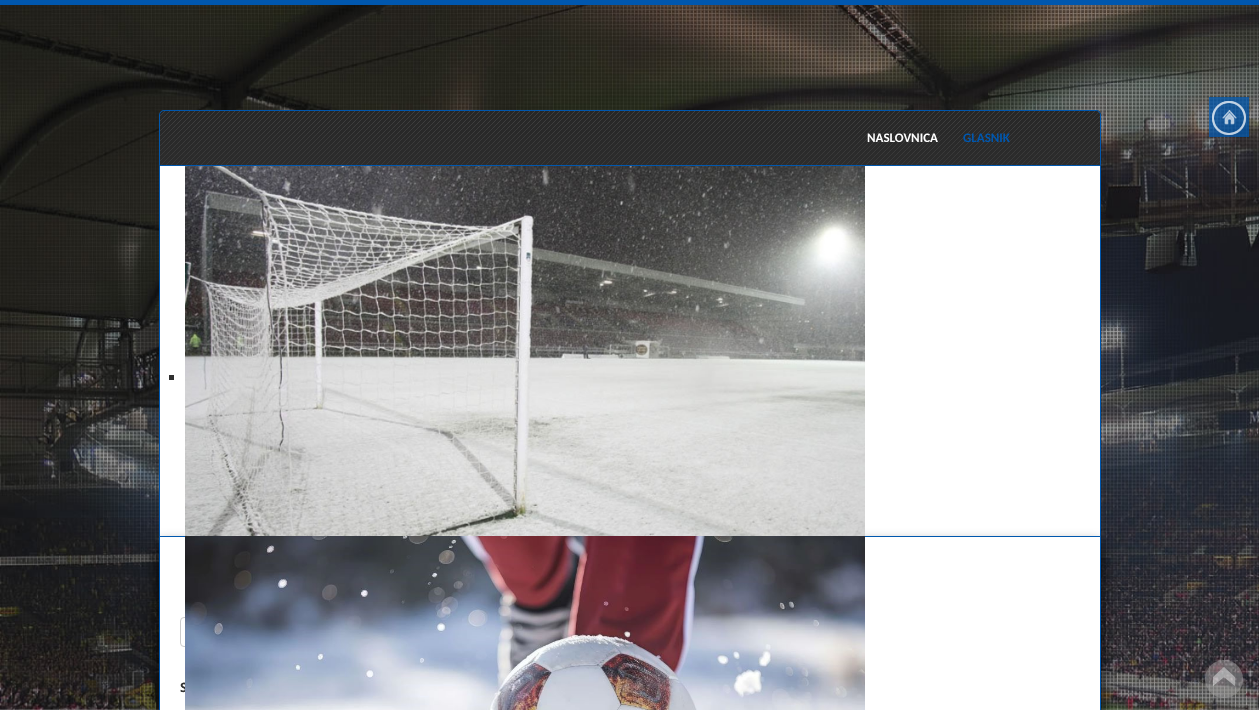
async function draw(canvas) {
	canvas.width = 1259;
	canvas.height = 710;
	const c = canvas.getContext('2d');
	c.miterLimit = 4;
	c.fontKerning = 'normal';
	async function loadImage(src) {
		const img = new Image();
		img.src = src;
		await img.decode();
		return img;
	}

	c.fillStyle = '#fff';
	c.fillRect(0, 0, 1259, 710);
	c.fillStyle = '#0057ae';
	c.fillRect(0, 0, 1259, 5);
	c.drawImage(await loadImage('img1.png'), 0, 5, 1259, 705);
	c.fillStyle = '#0057aebf';
	c.fillRect(1209, 97, 40, 40);
	c.drawImage(await loadImage('img2.png'), 1212, 101, 34, 34);
	c.fillStyle = '#333';
	c.beginPath();
	c.roundRect(159, 110, 942, 56, [5, 5, 0, 0]);
	c.fill();
	c.drawImage(await loadImage('img3.png'), 159, 111, 942, 54);
	c.beginPath();
	c.roundRect(159.5, 110.5, 941, 55, [4.5, 4.5, 0, 0]);
	c.strokeStyle = '#0057ae';
	c.stroke();
	c.font = 'bold 13px Carlito';
	c.fillStyle = '#fff';
	c.fillText('NASLOVNICA', 867, 142);
	c.fillStyle = '#0057ae';
	c.fillText('GLASNIK', 963, 142);
	for (const [x, y, w, h, color] of [
		[160, 166, 940, 370, '#fff'],
		[1100, 166, 1, 370, '#0057ae'],
		[159, 166, 1, 370, '#0057ae'],
		[169, 375, 5, 5, '#303030'],
	]) {
		c.fillStyle = color;
		c.fillRect(x, y, w, h);
	}
	c.fillStyle = '#000';
	c.filter = 'blur(7.5px)';
	c.beginPath();
	c.rect(159, 546, 942, 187);
	c.fill();
	c.filter = 'none';
	c.drawImage(await loadImage('img4.png'), 185, 166, 680, 370);
	c.fillStyle = '#fff';
	c.beginPath();
	c.rect(159.5, 536.5, 941, 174);
	c.fill();
	c.stroke();
	c.beginPath();
	c.roundRect(180.5, 617.5, 219, 29, 3.5);
	c.strokeStyle = '#ccc';
	c.stroke();
	c.font = 'bold 13px Open Sans';
	c.fillStyle = '#303030';
	c.fillText('S', 180, 692);
	c.drawImage(await loadImage('img5.png'), 185, 536, 680, 174);
	c.drawImage(await loadImage('img6.png'), 1205, 660, 38, 38);
}

draw(document.querySelector('canvas'));
